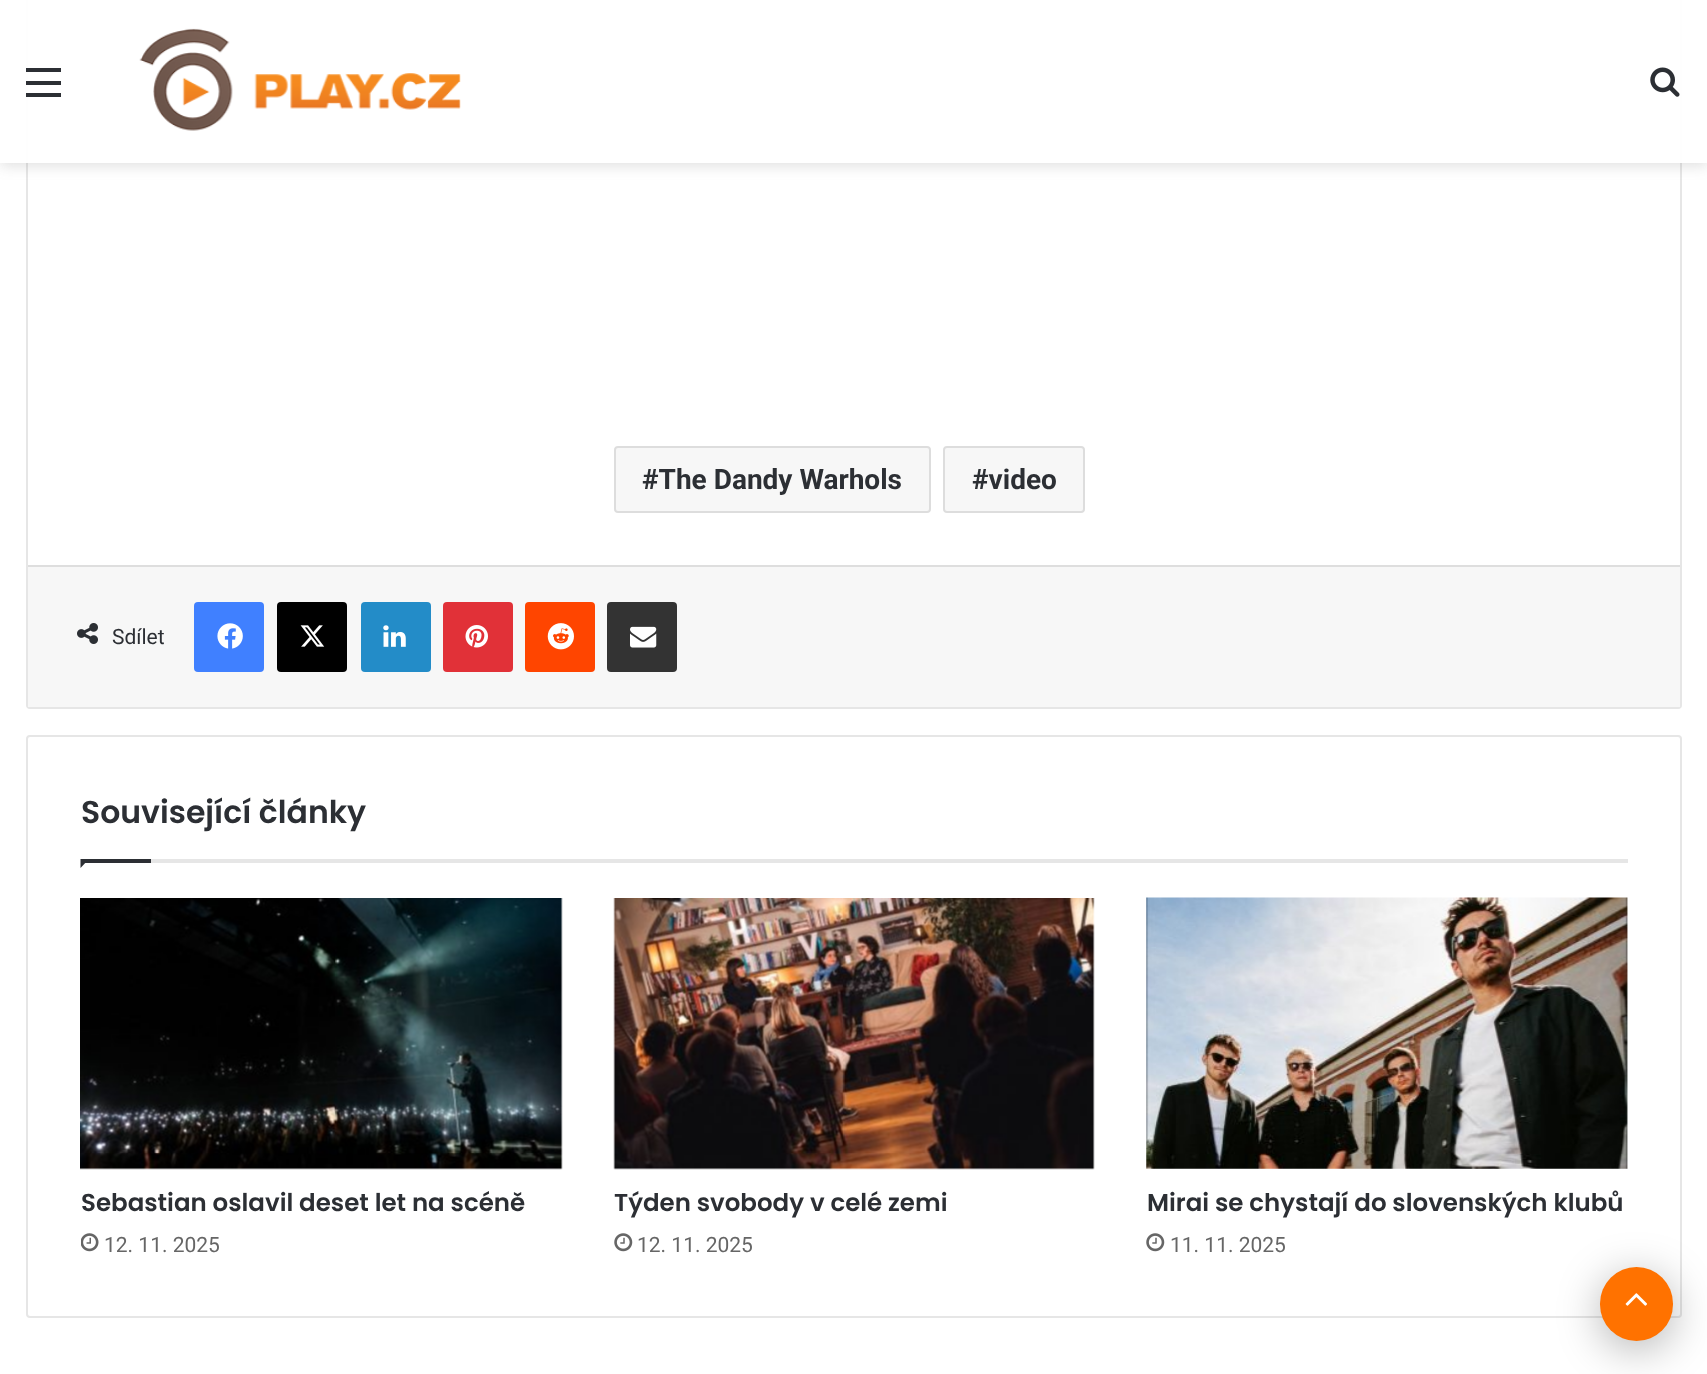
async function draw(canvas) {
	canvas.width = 1707;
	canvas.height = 1374;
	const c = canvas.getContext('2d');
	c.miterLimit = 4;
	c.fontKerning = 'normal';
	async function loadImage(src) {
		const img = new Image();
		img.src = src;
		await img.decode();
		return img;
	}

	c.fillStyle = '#fff';
	c.fillRect(0, 0, 1707, 1374);
	c.beginPath();
	c.roundRect(27, -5, 1654, 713, 3);
	c.strokeStyle = '#e6e6e6';
	c.lineWidth = 2;
	c.stroke();
	c.save();
	c.beginPath();
	c.moveTo(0, 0);
	c.lineTo(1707, 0);
	c.lineTo(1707, 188);
	c.lineTo(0, 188);
	c.closePath();
	c.moveTo(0, 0);
	c.lineTo(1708, 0);
	c.lineTo(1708, 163);
	c.lineTo(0, 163);
	c.closePath();
	c.clip('evenodd');
	c.fillStyle = '#63636333';
	c.filter = 'blur(7px)';
	c.beginPath();
	c.rect(0, 4, 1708, 162);
	c.fill();
	c.filter = 'none';
	c.restore();
	for (const [x, y, w, h, color] of [
		[0, 0, 1707, 163, '#fffffff2'],
		[26, 81, 35, 4, '#2c2f34'],
		[26, 68, 35, 4, '#2c2f34'],
		[26, 93, 35, 4, '#2c2f34'],
	]) {
		c.fillStyle = color;
		c.fillRect(x, y, w, h);
	}
	c.drawImage(await loadImage('img1.png'), 139, 28, 322, 103);
	c.drawImage(await loadImage('img2.png'), 1650, 67, 30, 30);
	c.fillStyle = '#f7f7f7';
	c.beginPath();
	c.roundRect(614, 446, 317, 67, 4);
	c.fill();
	c.beginPath();
	c.roundRect(615, 447, 315, 65, 3);
	c.strokeStyle = '#0000001a';
	c.stroke();
	c.font = 'bold 28px Roboto';
	c.fillStyle = '#2c2f34';
	c.fillText('#The Dandy Warhols', 642, 489);
	c.fillStyle = '#f7f7f7';
	c.beginPath();
	c.roundRect(943, 446, 142, 67, 4);
	c.fill();
	c.beginPath();
	c.roundRect(944, 447, 140, 65, 3);
	c.stroke();
	c.fillStyle = '#2c2f34';
	c.fillText('#video', 972, 489);
	c.fillStyle = '#f7f7f7';
	c.fillRect(28, 567, 1652, 140);
	c.fillStyle = '#dedede';
	c.fillRect(28, 565, 1652, 2);
	c.drawImage(await loadImage('img3.png'), 77, 623, 21, 21);
	c.font = '21px Roboto';
	c.fillStyle = '#2c2f34';
	c.fillText('Sdílet', 112, 644);
	c.fillStyle = '#4080ff';
	c.beginPath();
	c.roundRect(194, 602, 70, 70, 4);
	c.fill();
	c.drawImage(await loadImage('img4.png'), 217, 623, 26, 26);
	c.fillStyle = '#000';
	c.beginPath();
	c.roundRect(277, 602, 70, 70, 4);
	c.fill();
	c.drawImage(await loadImage('img5.png'), 300, 625, 25, 22);
	c.fillStyle = '#238cc8';
	c.beginPath();
	c.roundRect(361, 602, 70, 70, 4);
	c.fill();
	c.drawImage(await loadImage('img6.png'), 383, 625, 23, 22);
	c.fillStyle = '#e13138';
	c.beginPath();
	c.roundRect(443, 602, 70, 70, 4);
	c.fill();
	c.drawImage(await loadImage('img7.png'), 465, 625, 23, 23);
	c.fillStyle = '#ff4500';
	c.beginPath();
	c.roundRect(525, 602, 70, 70, 4);
	c.fill();
	c.drawImage(await loadImage('img8.png'), 547, 623, 27, 27);
	c.fillStyle = '#333';
	c.beginPath();
	c.roundRect(607, 602, 70, 70, 4);
	c.fill();
	c.drawImage(await loadImage('img9.png'), 630, 626, 27, 22);
	c.beginPath();
	c.roundRect(27, 736, 1654, 581, 3);
	c.strokeStyle = '#e6e6e6';
	c.stroke();
	c.fillStyle = '#e6e6e6';
	c.fillRect(151, 859, 1477, 4);
	c.font = '600 31.5px Poppins';
	c.fillStyle = '#2c2f34';
	c.fillText('Související články', 81, 823);
	c.beginPath();
	c.moveTo(80.5, 859);
	c.lineTo(89, 859);
	c.lineTo(80.5, 868);
	c.closePath();
	c.fill();
	c.fillRect(81, 859, 70, 4);
	c.drawImage(await loadImage('img10.png'), 80, 898, 483, 272);
	c.font = '600 24.5px Poppins';
	c.fillText('Sebastian oslavil deset let na scéně', 81, 1211);
	c.drawImage(await loadImage('img11.png'), 81, 1233, 18, 19);
	c.font = '21px Roboto';
	c.fillStyle = '#666';
	c.fillText('12. 11. 2025', 104, 1252);
	c.drawImage(await loadImage('img12.png'), 613, 898, 482, 272);
	c.font = '600 24.5px Poppins';
	c.fillStyle = '#2c2f34';
	c.fillText('Týden svobody v celé zemi', 614, 1211);
	c.drawImage(await loadImage('img13.png'), 614, 1233, 19, 19);
	c.font = '21px Roboto';
	c.fillStyle = '#666';
	c.fillText('12. 11. 2025', 637, 1252);
	c.drawImage(await loadImage('img14.png'), 1146, 897, 482, 272);
	c.font = '600 24.5px Poppins';
	c.fillStyle = '#2c2f34';
	c.fillText('Mirai se chystají do slovenských klubů', 1147, 1211);
	c.drawImage(await loadImage('img13.png'), 1146, 1233, 19, 19);
	c.font = '21px Roboto';
	c.fillStyle = '#666';
	c.fillText('11. 11. 2025', 1170, 1252);
	c.fillStyle = '#0000004d';
	c.filter = 'blur(22px)';
	c.beginPath();
	c.roundRect(1600, 1276, 73, 73, 36.5);
	c.fill();
	c.filter = 'none';
	c.fillStyle = '#ff7200';
	c.beginPath();
	c.roundRect(1600, 1267, 73, 74, 36.5);
	c.fill();
	c.drawImage(await loadImage('img15.png'), 1625, 1293, 22, 13);
}

draw(document.querySelector('canvas'));
